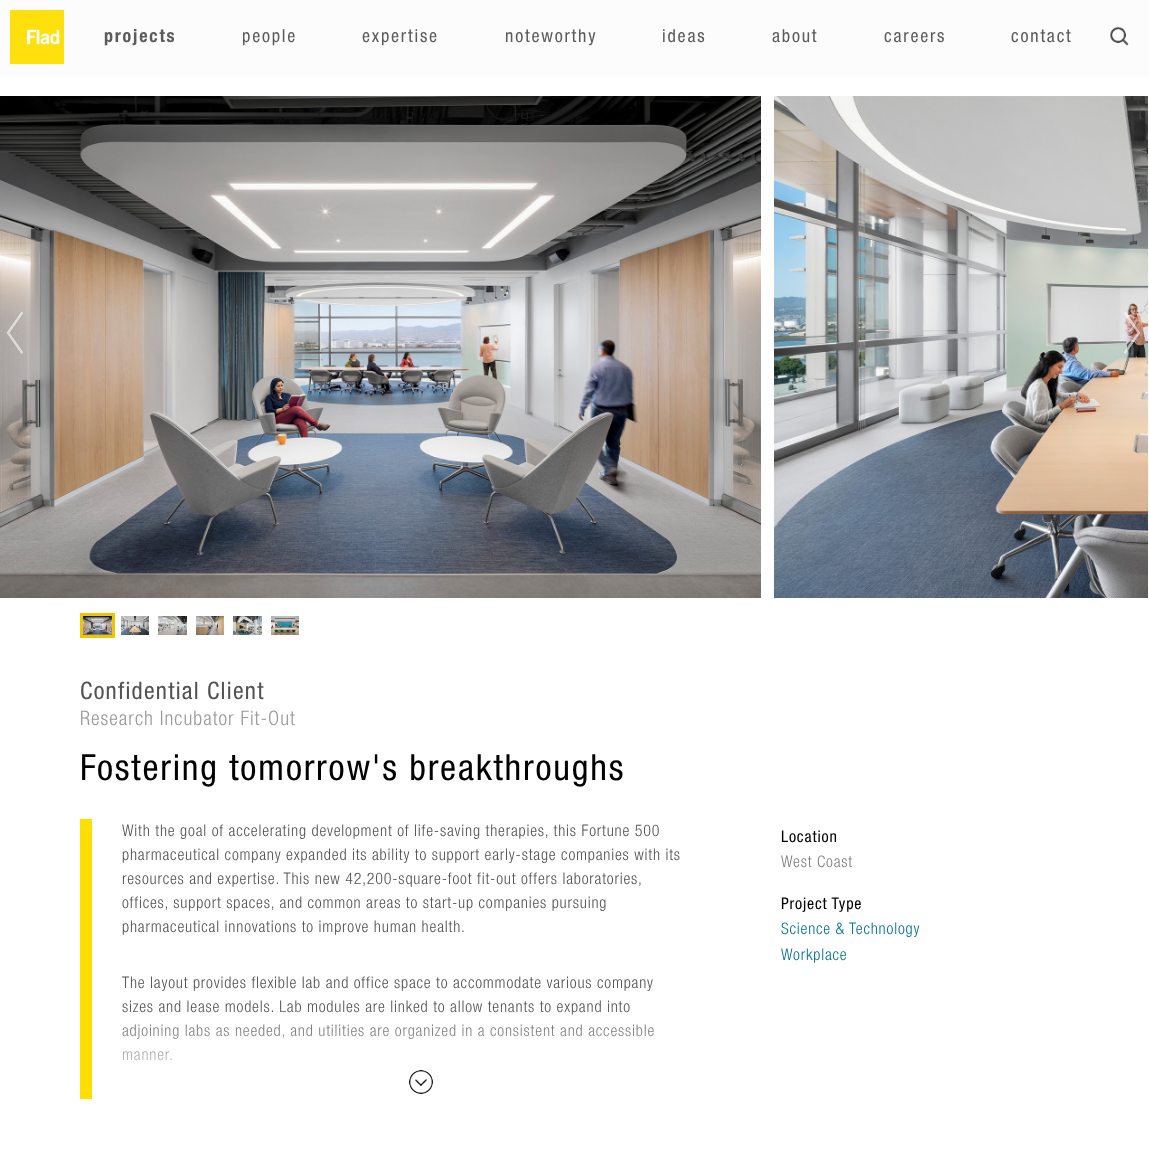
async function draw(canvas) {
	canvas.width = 1149;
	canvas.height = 1149;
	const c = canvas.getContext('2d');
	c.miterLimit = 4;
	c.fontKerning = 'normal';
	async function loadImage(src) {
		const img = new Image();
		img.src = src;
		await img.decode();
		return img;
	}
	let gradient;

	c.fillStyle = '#fff';
	c.fillRect(0, 0, 1149, 1149);
	c.fillStyle = '#fcfcfc';
	c.fillRect(0, 0, 1149, 76);
	c.drawImage(await loadImage('img1.png'), 10, 10, 54, 54);
	c.letterSpacing = '1.8px';
	c.font = '18px "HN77"';
	c.fillStyle = '#5b5b5b';
	c.fillText('projects', 104, 42);
	c.font = '18px "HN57"';
	for (const [text, x, y] of [
		['people', 242, 42],
		['expertise', 362, 42],
		['noteworthy', 505, 42],
		['ideas', 662, 42],
		['about', 772, 42],
		['careers', 884, 42],
		['contact', 1011, 42],
	]) {
		c.fillText(text, x, y);
	}
	c.drawImage(await loadImage('img2.png'), 1110, 26, 19, 20);
	c.drawImage(await loadImage('img3.png'), 0, 96, 761, 502);
	c.drawImage(await loadImage('img4.png'), 6, 311, 18, 43);
	c.strokeStyle = '#eec600';
	c.lineWidth = 3;
	c.strokeRect(81.5, 614.5, 32, 22);
	c.drawImage(await loadImage('img5.png'), 83, 616, 29, 19);
	c.drawImage(await loadImage('img6.png'), 121, 616, 28, 19);
	c.drawImage(await loadImage('img7.png'), 158, 616, 29, 19);
	c.drawImage(await loadImage('img8.png'), 196, 616, 28, 19);
	c.drawImage(await loadImage('img9.png'), 233, 616, 29, 19);
	c.drawImage(await loadImage('img10.png'), 271, 616, 28, 19);
	c.drawImage(await loadImage('img11.png'), 773, 96, 375, 502);
	c.drawImage(await loadImage('img12.png'), 1123, 312, 18, 42);
	c.letterSpacing = '1.25px';
	c.font = '24px "HN57"';
	c.fillStyle = '#525252';
	c.fillText('Confidential Client', 80, 699);
	c.letterSpacing = '1px';
	c.font = '20px "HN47"';
	c.fillStyle = '#989898';
	c.fillText('Research Incubator Fit-Out', 80, 725);
	c.letterSpacing = '1.8px';
	c.font = '36px "HN57"';
	c.fillStyle = '#000';
	c.fillText('Fostering tomorrow\'s breakthroughs', 80, 780);
	c.fillStyle = '#ffdf00';
	c.fillRect(80, 819, 12, 280);
	c.letterSpacing = '0.8px';
	c.font = '16px "HN47"';
	c.fillStyle = '#525252';
	for (const [text, x, y] of [
		['With the goal of accelerating development of life-saving therapies, this Fortune 500', 122, 836],
		['pharmaceutical company expanded its ability to support early-stage companies with its', 122, 860],
		['resources and expertise. This new 42,200-square-foot fit-out offers laboratories,', 122, 884],
		['offices, support spaces, and common areas to start-up companies pursuing', 122, 908],
		['pharmaceutical innovations to improve human health.', 122, 932],
		['The layout provides flexible lab and office space to accommodate various company', 122, 988],
		['sizes and lease models. Lab modules are linked to allow tenants to expand into', 122, 1012],
		['adjoining labs as needed, and utilities are organized in a consistent and accessible', 122, 1036],
		['manner.', 122, 1060],
	]) {
		c.fillText(text, x, y);
	}
	gradient = c.createLinearGradient(92, 1006, 92, 1099);
	gradient.addColorStop(0, '#ffffff00');
	gradient.addColorStop(1, '#fff');
	c.fillStyle = gradient;
	c.fillRect(122, 1008, 532, 53);
	c.drawImage(await loadImage('img13.png'), 409, 1070, 24, 24);
	c.font = '16px "HN57"';
	c.fillStyle = '#000';
	c.fillText('Location', 781, 842);
	c.font = '16px "HN47"';
	c.fillStyle = '#7d7d7e';
	c.fillText('West Coast', 781, 867);
	c.font = '16px "HN57"';
	c.fillStyle = '#000';
	c.fillText('Project Type', 781, 909);
	c.font = '16px "HN47"';
	c.fillStyle = '#007295';
	c.fillText('Science & Technology', 781, 934);
	c.fillText('Workplace', 781, 960);
}

draw(document.querySelector('canvas'));
